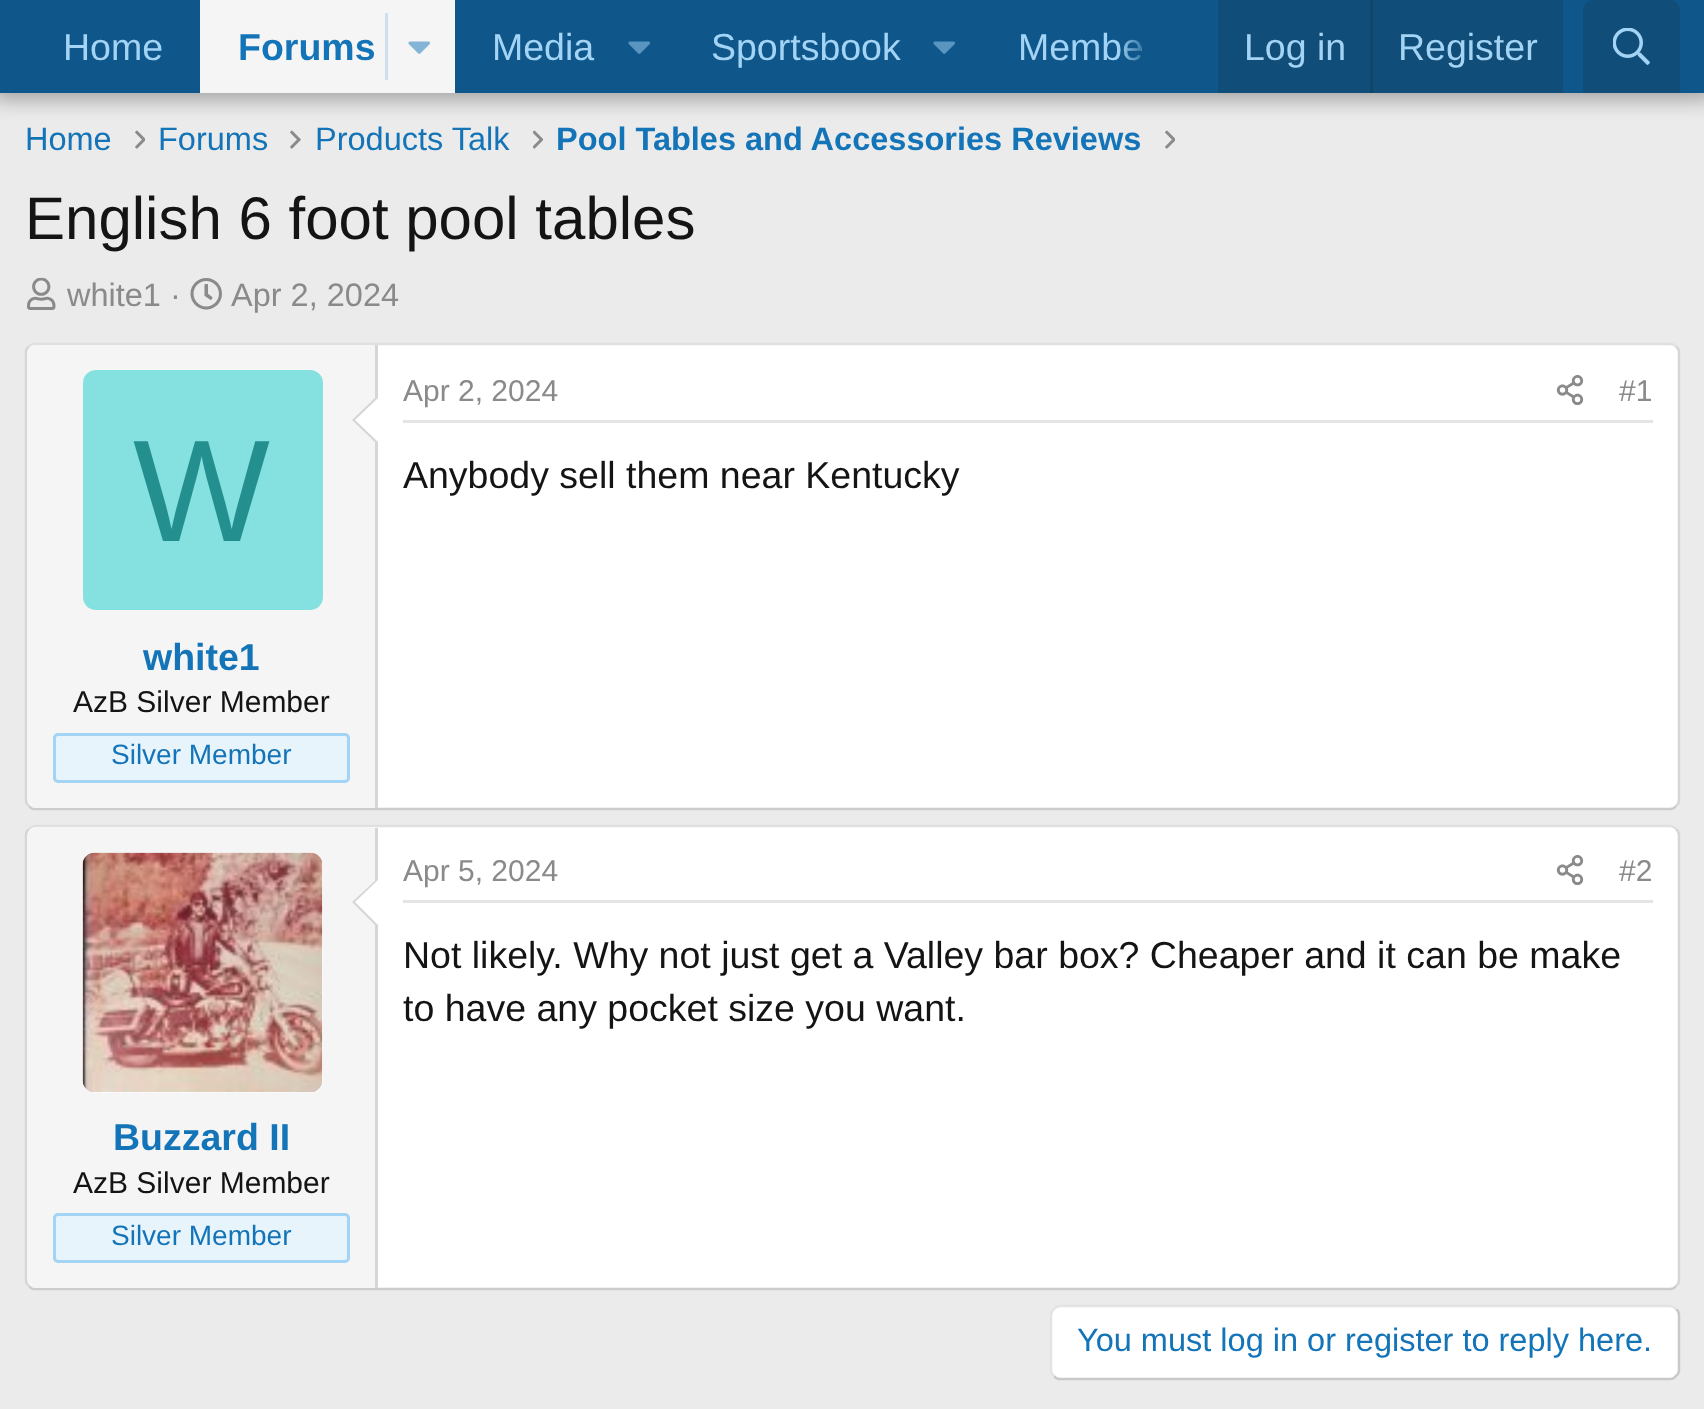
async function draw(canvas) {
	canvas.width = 1704;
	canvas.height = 1409;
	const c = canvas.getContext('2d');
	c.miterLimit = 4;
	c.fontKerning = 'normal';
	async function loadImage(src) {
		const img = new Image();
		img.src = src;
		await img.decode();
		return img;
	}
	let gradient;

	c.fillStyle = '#ebebeb';
	c.fillRect(0, 0, 1704, 1409);
	c.drawImage(await loadImage('img4.png'), 135, 130, 10, 19);
	c.drawImage(await loadImage('img5.png'), 290, 130, 11, 19);
	c.drawImage(await loadImage('img6.png'), 533, 130, 10, 19);
	c.drawImage(await loadImage('img4.png'), 1165, 130, 10, 19);
	c.fillStyle = '#0000004d';
	c.filter = 'blur(10px)';
	c.beginPath();
	c.rect(-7, -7, 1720, 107);
	c.fill();
	c.filter = 'none';
	c.fillStyle = '#0f578a';
	c.fillRect(0, 0, 1704, 93);
	c.font = '37.5px Liberation Sans';
	c.fillStyle = '#a3d4f5';
	c.fillText('Home', 63, 60);
	c.fillStyle = '#f5f5f5';
	c.fillRect(200, 0, 255, 93);
	c.font = 'bold 37.5px Liberation Sans';
	c.fillStyle = '#1474b8';
	c.fillText('Forums', 238, 60);
	c.fillStyle = '#cedfeb';
	c.fillRect(385, 13, 3, 67);
	c.drawImage(await loadImage('img1.png'), 408, 41, 22, 13);
	c.font = '37.5px Liberation Sans';
	c.fillStyle = '#a3d4f5';
	c.fillText('Media', 492, 60);
	c.drawImage(await loadImage('img2.png'), 628, 41, 22, 13);
	c.fillText('Sportsbook', 711, 60);
	c.drawImage(await loadImage('img2.png'), 933, 41, 22, 13);
	c.fillText('Membe', 1018, 60);
	gradient = c.createLinearGradient(1118, 46, 1218, 46);
	gradient.addColorStop(0, '#0f578a00');
	gradient.addColorStop(0.33, '#0f578a');
	c.fillStyle = gradient;
	c.fillRect(1119, 39, 22, 22);
	c.fillStyle = '#104d78';
	c.fillRect(1218, 0, 345, 93);
	c.fillStyle = '#a3d4f5';
	c.fillText('Log in', 1244, 60);
	c.fillStyle = '#114469';
	c.fillRect(1370, 0, 3, 93);
	c.fillStyle = '#a3d4f5';
	c.fillText('Register', 1398, 60);
	c.fillStyle = '#104d78';
	c.beginPath();
	c.roundRect(1583, 0, 97, 93, [10, 10, 0, 0]);
	c.fill();
	c.drawImage(await loadImage('img3.png'), 1613, 28, 37, 37);
	c.font = '32.5px Liberation Sans';
	c.fillStyle = '#1474b8';
	for (const [text, x, y] of [
		['Home', 25, 150],
		['Forums', 158, 150],
		['Products Talk', 315, 150],
	]) {
		c.fillText(text, x, y);
	}
	c.font = 'bold 32.5px Liberation Sans';
	c.fillText('Pool Tables and Accessories Reviews', 556, 150);
	c.font = '60px Liberation Sans';
	c.fillStyle = '#141414';
	c.fillText('English 6 foot pool tables', 25, 239);
	c.drawImage(await loadImage('img7.png'), 27, 277, 29, 33);
	c.font = '32.5px Liberation Sans';
	c.fillStyle = '#8a8a8a';
	c.fillText('white1 ·', 67, 306);
	c.drawImage(await loadImage('img8.png'), 190, 278, 32, 32);
	c.fillText('Apr 2, 2024', 231, 306);
	c.fillStyle = '#fff';
	c.beginPath();
	c.roundRect(25, 343, 1655, 467, 10);
	c.fill();
	c.beginPath();
	c.moveTo(29, 346.5);
	c.bezierCurveTo(30.5, 344.5, 32.5, 344, 35, 344);
	c.lineTo(1670, 344);
	c.bezierCurveTo(1672.5, 344, 1674.5, 344.5, 1676, 346.5);
	c.strokeStyle = '#e0e0e0';
	c.lineWidth = 2.5;
	c.stroke();
	c.beginPath();
	c.moveTo(1676, 346.5);
	c.bezierCurveTo(1678, 348, 1679, 350, 1679, 352.5);
	c.lineTo(1679, 800);
	c.bezierCurveTo(1679, 802.5, 1678, 804.5, 1676, 806);
	c.strokeStyle = '#d6d6d6';
	c.stroke();
	c.beginPath();
	c.moveTo(1676, 806);
	c.bezierCurveTo(1674.5, 808, 1672.5, 809, 1670, 809);
	c.lineTo(35, 809);
	c.bezierCurveTo(32.5, 809, 30.5, 808, 29, 806);
	c.strokeStyle = '#ccc';
	c.stroke();
	c.beginPath();
	c.moveTo(29, 806);
	c.bezierCurveTo(27, 804.5, 26, 802.5, 26, 800);
	c.lineTo(26, 352.5);
	c.bezierCurveTo(26, 350, 27, 348, 29, 346.5);
	c.strokeStyle = '#d6d6d6';
	c.stroke();
	c.fillStyle = '#f5f5f5';
	c.beginPath();
	c.roundRect(28, 345, 350, 463, [8, 0, 0, 8]);
	c.fill();
	c.fillStyle = '#d6d6d6';
	c.fillRect(375, 345, 3, 463);
	c.beginPath();
	c.moveTo(378, 395);
	c.lineTo(378, 445);
	c.lineTo(352, 420);
	c.closePath();
	c.fill();
	c.fillStyle = '#fff';
	c.beginPath();
	c.moveTo(378, 398);
	c.lineTo(378, 442);
	c.lineTo(355, 420);
	c.closePath();
	c.fill();
	c.fillStyle = '#85e0e0';
	c.beginPath();
	c.roundRect(83, 370, 240, 240, 13);
	c.fill();
	c.font = '145px Liberation Sans';
	c.fillStyle = '#248f8f';
	c.fillText('W', 133, 541);
	c.font = 'bold 37.5px Liberation Sans';
	c.fillStyle = '#1474b8';
	c.fillText('white1', 143, 670);
	c.font = '30px Liberation Sans';
	c.fillStyle = '#141414';
	c.fillText('AzB Silver Member', 73, 712);
	c.fillStyle = '#e8f4fc';
	c.beginPath();
	c.roundRect(54.5, 734.5, 294, 47, 3.5);
	c.fill();
	c.strokeStyle = '#a3d4f5';
	c.lineWidth = 3;
	c.stroke();
	c.font = '28px Liberation Sans';
	c.fillStyle = '#1474b8';
	c.fillText('Silver Member', 111, 764);
	c.fillStyle = '#e5e5e5';
	c.fillRect(403, 420, 1250, 3);
	c.font = '30px Liberation Sans';
	c.fillStyle = '#8a8a8a';
	c.fillText('Apr 2, 2024', 403, 401);
	c.drawImage(await loadImage('img9.png'), 1556, 375, 28, 30);
	c.fillText('#1', 1619, 401);
	c.font = '37.5px Liberation Sans';
	c.fillStyle = '#141414';
	c.fillText('Anybody sell them near Kentucky', 403, 488);
	c.fillStyle = '#fff';
	c.beginPath();
	c.roundRect(25, 825, 1655, 465, 10);
	c.fill();
	c.beginPath();
	c.moveTo(29, 829);
	c.bezierCurveTo(30.5, 827, 32.5, 826, 35, 826);
	c.lineTo(1670, 826);
	c.bezierCurveTo(1672.5, 826, 1674.5, 827, 1676, 829);
	c.strokeStyle = '#e0e0e0';
	c.lineWidth = 2.5;
	c.stroke();
	c.beginPath();
	c.moveTo(1676, 829);
	c.bezierCurveTo(1678, 830.5, 1679, 832.5, 1679, 835);
	c.lineTo(1679, 1280);
	c.bezierCurveTo(1679, 1282.5, 1678, 1284.5, 1676, 1286);
	c.strokeStyle = '#d6d6d6';
	c.stroke();
	c.beginPath();
	c.moveTo(1676, 1286);
	c.bezierCurveTo(1674.5, 1288, 1672.5, 1289, 1670, 1289);
	c.lineTo(35, 1289);
	c.bezierCurveTo(32.5, 1289, 30.5, 1288, 29, 1286);
	c.strokeStyle = '#ccc';
	c.stroke();
	c.beginPath();
	c.moveTo(29, 1286);
	c.bezierCurveTo(27, 1284.5, 26, 1282.5, 26, 1280);
	c.lineTo(26, 835);
	c.bezierCurveTo(26, 832.5, 27, 830.5, 29, 829);
	c.strokeStyle = '#d6d6d6';
	c.stroke();
	c.fillStyle = '#e5e5e5';
	c.fillRect(403, 900, 1250, 3);
	c.font = '30px Liberation Sans';
	c.fillStyle = '#8a8a8a';
	c.fillText('Apr 5, 2024', 403, 881);
	c.drawImage(await loadImage('img10.png'), 1556, 855, 28, 30);
	c.fillText('#2', 1619, 881);
	c.font = '37.5px Liberation Sans';
	c.fillStyle = '#141414';
	c.fillText('Not likely. Why not just get a Valley bar box? Cheaper and it can be make', 403, 968);
	c.fillText('to have any pocket size you want.', 403, 1021);
	c.fillStyle = '#f5f5f5';
	c.beginPath();
	c.roundRect(28, 828, 350, 460, [8, 0, 0, 8]);
	c.fill();
	c.fillStyle = '#d6d6d6';
	c.fillRect(375, 828, 3, 460);
	c.fillStyle = '#fff';
	c.beginPath();
	c.roundRect(83, 853, 240, 240, 13);
	c.fill();
	c.drawImage(await loadImage('img11.png'), 82, 852, 241, 241);
	c.fillStyle = '#d6d6d6';
	c.beginPath();
	c.moveTo(378, 878);
	c.lineTo(378, 928);
	c.lineTo(352, 902);
	c.closePath();
	c.fill();
	c.fillStyle = '#fff';
	c.beginPath();
	c.moveTo(378, 880);
	c.lineTo(378, 925);
	c.lineTo(355, 902);
	c.closePath();
	c.fill();
	c.font = 'bold 37.5px Liberation Sans';
	c.fillStyle = '#1474b8';
	c.fillText('Buzzard II', 113, 1150);
	c.font = '30px Liberation Sans';
	c.fillStyle = '#141414';
	c.fillText('AzB Silver Member', 73, 1193);
	c.fillStyle = '#e8f4fc';
	c.beginPath();
	c.roundRect(54.5, 1214.5, 294, 47, 3.5);
	c.fill();
	c.strokeStyle = '#a3d4f5';
	c.lineWidth = 3;
	c.stroke();
	c.font = '28px Liberation Sans';
	c.fillStyle = '#1474b8';
	c.fillText('Silver Member', 111, 1245);
	c.fillStyle = '#fff';
	c.beginPath();
	c.roundRect(1050, 1305, 630, 75, 10);
	c.fill();
	c.beginPath();
	c.moveTo(1676, 1309);
	c.bezierCurveTo(1678, 1310.5, 1679, 1312.5, 1679, 1315);
	c.lineTo(1679, 1370);
	c.bezierCurveTo(1679, 1372.5, 1678, 1374.5, 1676, 1376);
	c.bezierCurveTo(1674.5, 1378, 1672.5, 1379, 1670, 1379);
	c.lineTo(1060, 1379);
	c.bezierCurveTo(1057.5, 1379, 1055.5, 1378, 1054, 1376);
	c.strokeStyle = '#c9c9c9';
	c.lineWidth = 2.5;
	c.stroke();
	c.beginPath();
	c.moveTo(1054, 1376);
	c.bezierCurveTo(1052, 1374.5, 1051, 1372.5, 1051, 1370);
	c.lineTo(1051, 1315);
	c.bezierCurveTo(1051, 1312.5, 1052, 1310.5, 1054, 1309);
	c.bezierCurveTo(1055.5, 1307, 1057.5, 1306, 1060, 1306);
	c.lineTo(1670, 1306);
	c.bezierCurveTo(1672.5, 1306, 1674.5, 1307, 1676, 1309);
	c.strokeStyle = '#e3e3e3';
	c.stroke();
	c.font = '32.5px Liberation Sans';
	c.fillStyle = '#1474b8';
	c.fillText('You must log in or register to reply here.', 1077, 1351);
}

draw(document.querySelector('canvas'));
